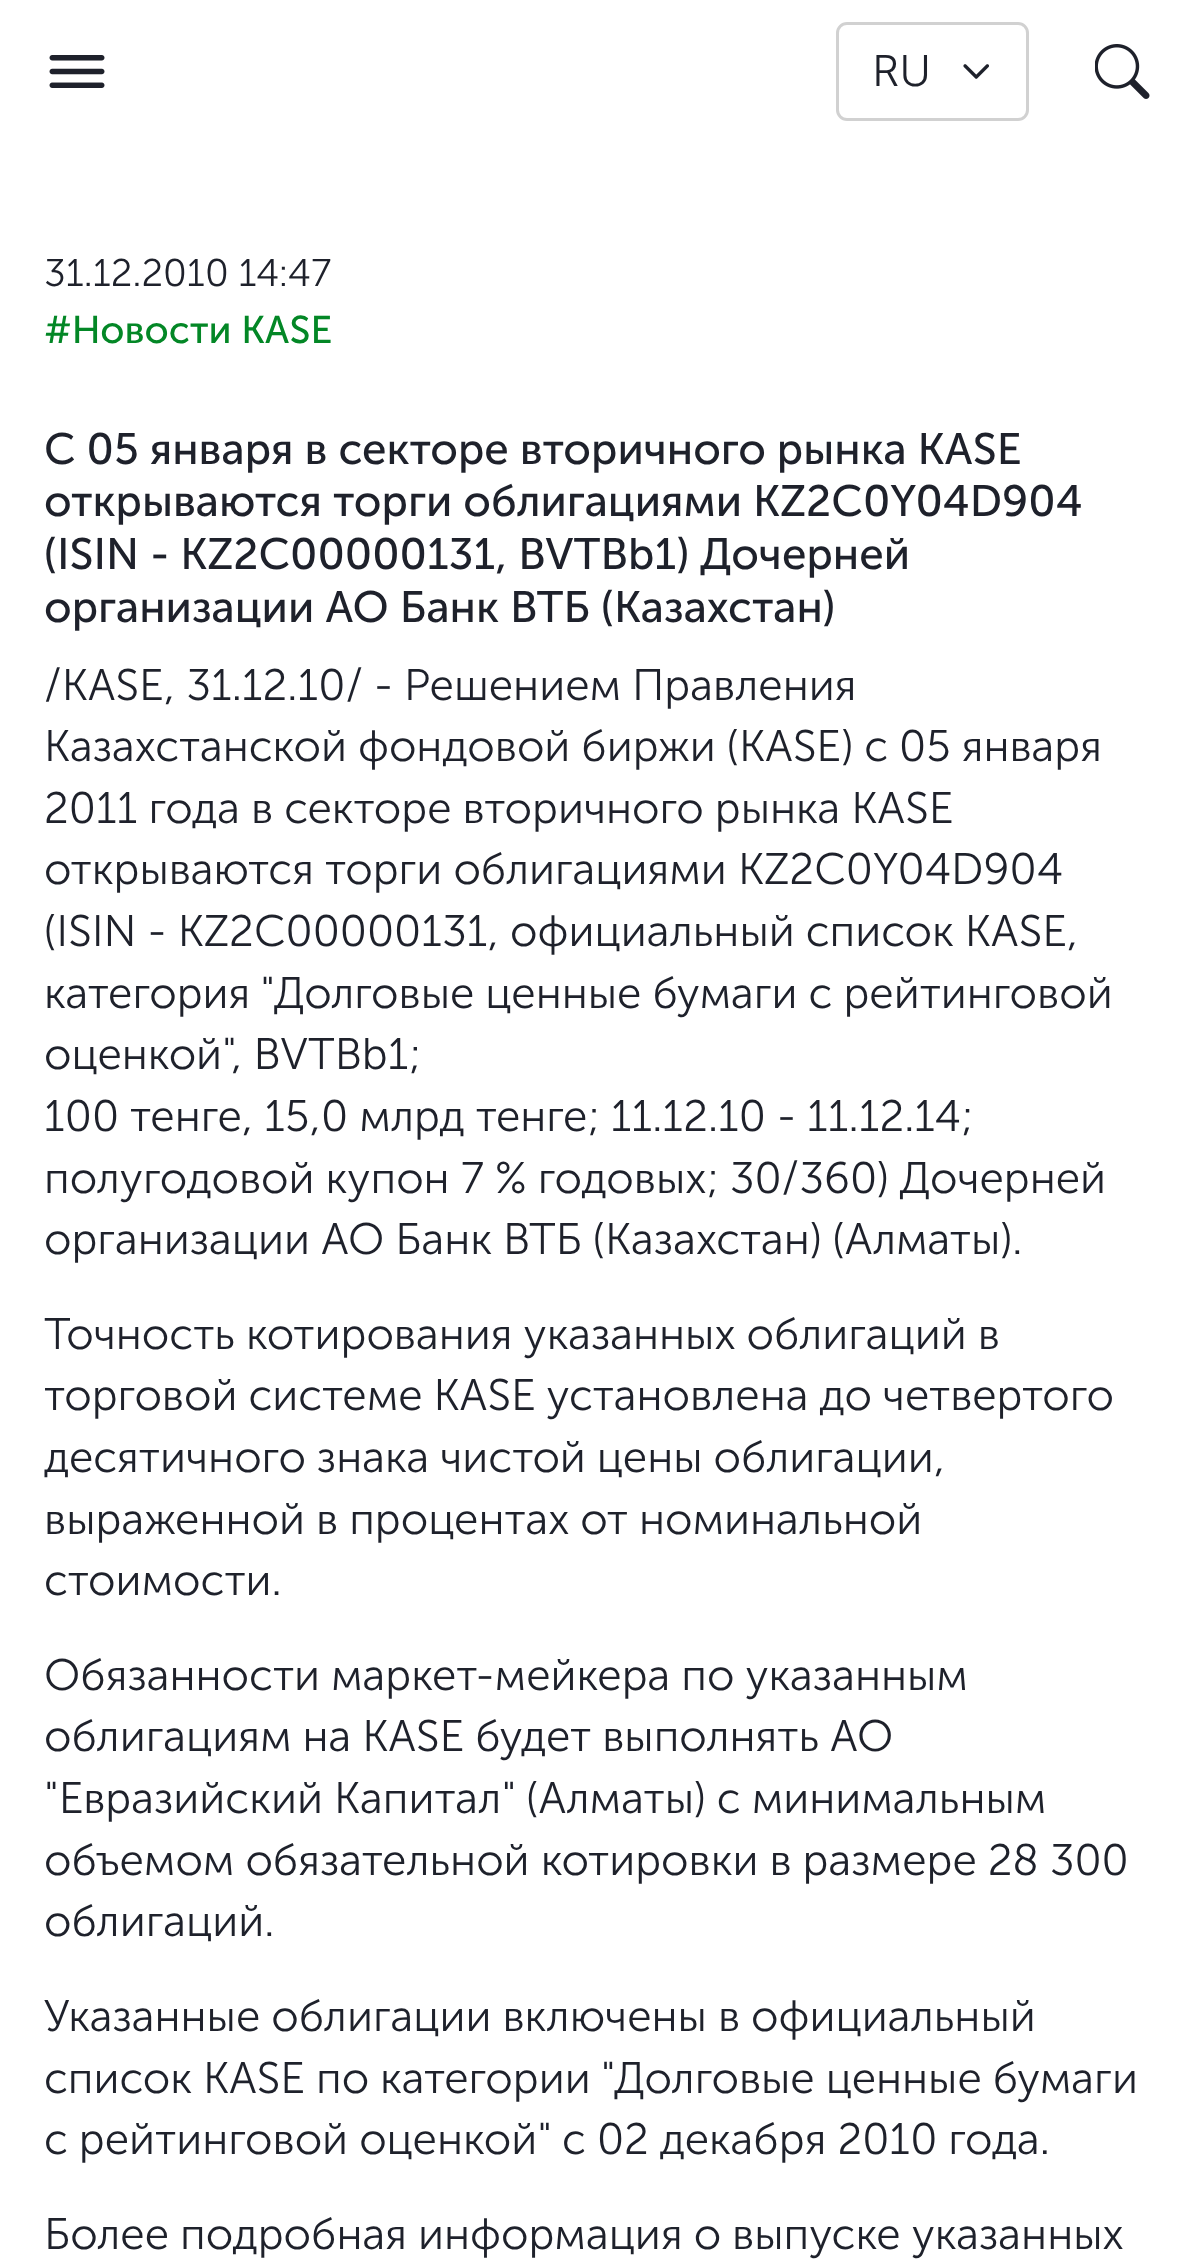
async function draw(canvas) {
	canvas.width = 1191;
	canvas.height = 2266;
	const c = canvas.getContext('2d');
	c.miterLimit = 4;
	c.fontKerning = 'normal';
	async function loadImage(src) {
		const img = new Image();
		img.src = src;
		await img.decode();
		return img;
	}

	c.fillStyle = '#fff';
	c.fillRect(0, 0, 1191, 2266);
	c.drawImage(await loadImage('img1.png'), 49, 55, 56, 33);
	c.beginPath();
	c.roundRect(837.5, 23.5, 190, 96, 9.5);
	c.strokeStyle = '#d1d1d1';
	c.lineWidth = 3;
	c.stroke();
	c.font = '300 44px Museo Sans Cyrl';
	c.fillStyle = '#1e212b';
	c.fillText('RU', 872, 86);
	c.drawImage(await loadImage('img2.png'), 963, 64, 26, 15);
	c.drawImage(await loadImage('img3.png'), 1095, 44, 55, 55);
	c.font = '300 38.5px Museo Sans Cyrl';
	c.fillText('31.12.2010 14:47', 44, 286);
	c.font = '38.5px Museo Sans Cyrl';
	c.fillStyle = '#038726';
	c.fillText('#Новости KASE', 44, 343);
	c.font = '44px Museo Sans Cyrl';
	c.fillStyle = '#1e212b';
	for (const [text, x, y] of [
		['С 05 января в секторе вторичного рынка KASE', 44, 464],
		['открываются торги облигациями KZ2С0Y04D904', 44, 516],
		['(ISIN - KZ2C00000131, BVTBb1) Дочерней', 44, 569],
		['организации АО Банк ВТБ (Казахстан)', 44, 622],
	]) {
		c.fillText(text, x, y);
	}
	c.font = '300 44px Museo Sans Cyrl';
	for (const [text, x, y] of [
		['/KASE, 31.12.10/ - Решением Правления', 44, 700],
		['Казахстанской фондовой биржи (KASE) с 05 января', 44, 761],
		['2011 года в секторе вторичного рынка KASE', 44, 823],
		['открываются торги облигациями KZ2С0Y04D904', 44, 884],
		['(ISIN - KZ2C00000131, официальный список KASE,', 44, 946],
		['категория "Долговые ценные бумаги с рейтинговой', 44, 1008],
		['оценкой", BVTBb1;', 44, 1069],
		['100 тенге, 15,0 млрд тенге; 11.12.10 - 11.12.14;', 44, 1131],
		['полугодовой купон 7 % годовых; 30/360) Дочерней', 44, 1193],
		['организации АО Банк ВТБ (Казахстан) (Алматы).', 44, 1254],
		['Точность котирования указанных облигаций в', 44, 1349],
		['торговой системе KASE установлена до четвертого', 44, 1410],
		['десятичного знака чистой цены облигации,', 44, 1472],
		['выраженной в процентах от номинальной', 44, 1534],
		['стоимости.', 44, 1595],
		['Обязанности маркет-мейкера по указанным', 44, 1690],
		['облигациям на KASE будет выполнять АО', 44, 1751],
		['"Евразийский Капитал" (Алматы) с минимальным', 44, 1813],
		['объемом обязательной котировки в размере 28 300', 44, 1875],
		['облигаций.', 44, 1936],
		['Указанные облигации включены в официальный', 44, 2031],
		['список KASE по категории "Долговые ценные бумаги', 44, 2093],
		['с рейтинговой оценкой" с 02 декабря 2010 года.', 44, 2154],
		['Более подробная информация о выпуске указанных', 44, 2249],
	]) {
		c.fillText(text, x, y);
	}
}

draw(document.querySelector('canvas'));
